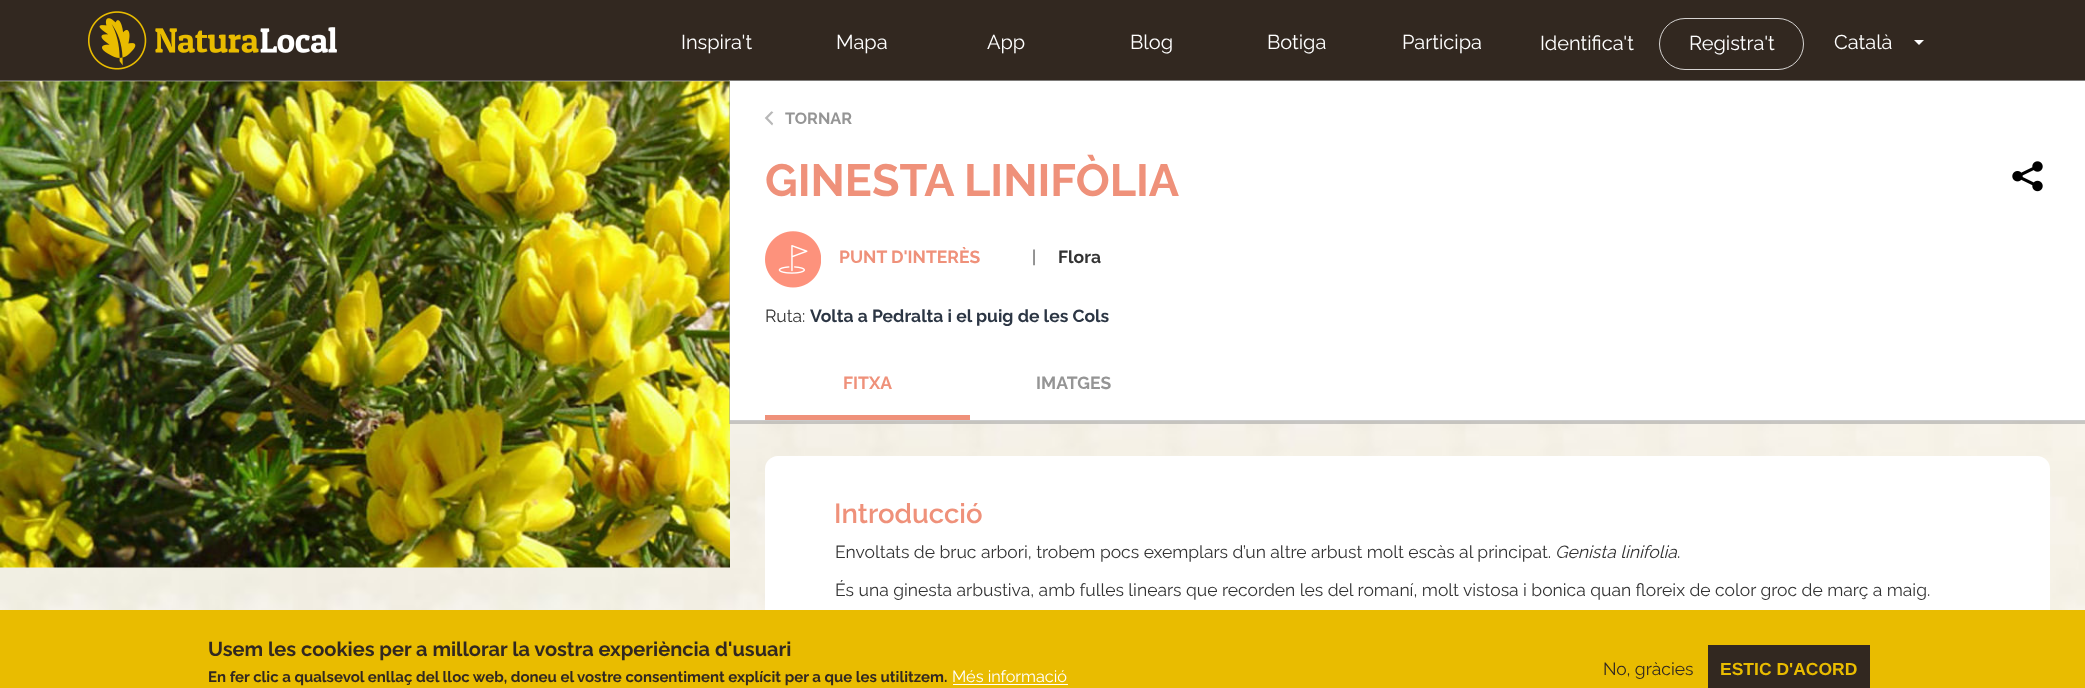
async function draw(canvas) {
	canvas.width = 2085;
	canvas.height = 688;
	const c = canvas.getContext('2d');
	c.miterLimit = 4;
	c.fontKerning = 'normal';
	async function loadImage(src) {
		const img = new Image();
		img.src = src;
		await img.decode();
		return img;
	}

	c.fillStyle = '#fff';
	c.fillRect(0, 0, 2085, 688);
	c.fillStyle = '#322820';
	c.fillRect(0, 0, 2085, 80);
	c.fillStyle = '#65605c';
	c.fillRect(0, 80, 2085, 1);
	c.drawImage(await loadImage('img1.png'), 88, 11, 249, 59);
	c.font = '20px Raleway';
	c.fillStyle = '#fff';
	for (const [text, x, y] of [
		['Inspira\'t', 681, 49],
		['Mapa', 836, 49],
		['App', 987, 49],
		['Blog', 1130, 49],
		['Botiga', 1267, 49],
		['Participa', 1402, 49],
		['Identifica\'t', 1540, 50],
	]) {
		c.fillText(text, x, y);
	}
	c.beginPath();
	c.roundRect(1659.5, 18.5, 144, 51, 25.5);
	c.strokeStyle = '#d6d4d2';
	c.stroke();
	c.fillText('Registra\'t', 1689, 50);
	c.fillText('Català', 1834, 49);
	c.beginPath();
	c.moveTo(1914, 40);
	c.lineTo(1924, 40);
	c.lineTo(1919, 45);
	c.closePath();
	c.fill();
	c.drawImage(await loadImage('img2.png'), 0, 81, 2085, 529);
	c.drawImage(await loadImage('img3.png'), 0, 81, 730, 487);
	c.fillStyle = '#97979780';
	c.filter = 'blur(0.5px)';
	c.beginPath();
	c.rect(729, 80, 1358, 344);
	c.fill();
	c.filter = 'none';
	c.fillStyle = '#fff';
	c.fillRect(730, 81, 1355, 339);
	c.fillStyle = '#cbcbcb';
	c.fillRect(730, 420, 1355, 1);
	c.beginPath();
	c.moveTo(772, 124.5);
	c.lineTo(765.5, 118);
	c.lineTo(771.5, 112);
	c.lineTo(772.5, 112.5);
	c.lineTo(767, 118);
	c.lineTo(772.5, 123.5);
	c.closePath();
	c.strokeStyle = '#b8b8b8';
	c.lineWidth = 1.1;
	c.lineCap = 'square';
	c.stroke();
	c.font = 'bold 16.25px Raleway';
	c.fillStyle = '#959595';
	c.fillText('TORNAR', 785, 124);
	c.font = 'bold 45px Raleway';
	c.fillStyle = '#ef917a';
	c.fillText('GINESTA LINIFÒLIA', 765, 196);
	c.drawImage(await loadImage('img4.png'), 2012, 161, 31, 31);
	c.drawImage(await loadImage('img5.png'), 765, 231, 56, 57);
	c.font = 'bold 17.5px Raleway';
	c.fillText('PUNT D\'INTERÈS', 839, 263);
	c.font = '17.5px Raleway';
	c.fillStyle = '#333';
	c.fillText('|', 1032, 263);
	c.font = 'bold 17.5px Raleway';
	c.fillText('Flora', 1058, 263);
	c.font = '17.5px Raleway';
	c.fillText('Ruta:', 765, 322);
	c.font = 'bold 17.5px Raleway';
	c.fillStyle = '#2c3644';
	c.fillText('Volta a Pedralta i el puig de les Cols', 810, 322);
	c.fillStyle = '#ef917a';
	c.fillRect(765, 415, 205, 5);
	c.fillText('FITXA', 843, 389);
	c.fillStyle = '#959595';
	c.fillText('IMATGES', 1036, 389);
	c.fillStyle = '#fff';
	c.beginPath();
	c.roundRect(765, 456, 1285, 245, 13);
	c.fill();
	c.font = '600 27.5px Raleway';
	c.fillStyle = '#ef917a';
	c.fillText('Introducció', 834, 523);
	c.font = '17.5px Raleway';
	c.fillStyle = '#333';
	c.fillText('Envoltats de bruc arbori, trobem pocs exemplars d’un altre arbust molt escàs al principat.', 835, 558);
	c.font = 'italic 17.5px Raleway';
	c.fillText('Genista linifolia', 1555, 558);
	c.font = '17.5px Raleway';
	c.fillText('.', 1677, 558);
	c.fillText('És una ginesta arbustiva, amb fulles linears que recorden les del romaní, molt vistosa i bonica quan floreix de color groc de març a maig.', 835, 596);
	c.fillStyle = '#e9bc00';
	c.fillRect(0, 610, 2085, 78);
	c.font = 'bold 20px Raleway';
	c.fillStyle = '#322820';
	c.fillText('Usem les cookies per a millorar la vostra experiència d\'usuari', 208, 656);
	c.font = 'bold 15px Raleway';
	c.fillText('En fer clic a qualsevol enllaç del lloc web, doneu el vostre consentiment explícit per a que les utilitzem.', 208, 682);
	c.font = '16.25px Raleway';
	c.fillStyle = '#fff';
	c.fillText('Més informació', 952, 682);
	c.fillRect(953, 684, 115, 1);
	c.font = '17.5px Raleway';
	c.fillStyle = '#322820';
	c.fillText('No, gràcies', 1603, 675);
	c.fillRect(1708, 645, 162, 43);
	c.font = 'bold 17.5px Liberation Sans';
	c.fillStyle = '#e9bc00';
	c.fillText('ESTIC D\'ACORD', 1720, 675);
}

draw(document.querySelector('canvas'));
